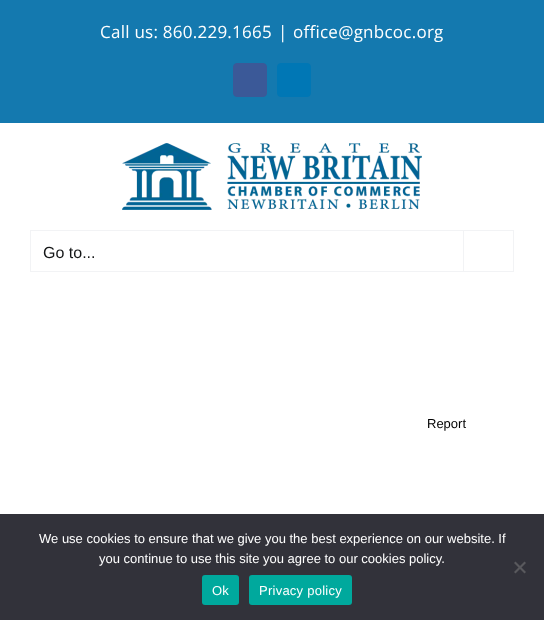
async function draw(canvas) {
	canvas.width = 544;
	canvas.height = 620;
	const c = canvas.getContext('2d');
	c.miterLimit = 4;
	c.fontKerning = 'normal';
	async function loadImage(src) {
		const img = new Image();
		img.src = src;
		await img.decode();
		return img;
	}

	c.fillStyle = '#fff';
	c.fillRect(0, 0, 544, 620);
	c.fillStyle = '#1479af';
	c.fillRect(0, 0, 544, 123);
	c.letterSpacing = '0.25px';
	c.font = '17px Open Sans';
	c.fillStyle = '#fff';
	for (const [text, x, y] of [
		['Call us: 860.229.1665', 100, 38],
		['|', 278, 38],
		['office@gnbcoc.org', 293, 38],
	]) {
		c.fillText(text, x, y);
	}
	c.fillStyle = '#3b5998';
	c.beginPath();
	c.roundRect(233.5, 63.5, 33, 33, 3.5);
	c.fill();
	c.strokeStyle = '#3b5998';
	c.stroke();
	c.fillStyle = '#0077b5';
	c.beginPath();
	c.roundRect(277.5, 63.5, 33, 33, 3.5);
	c.fill();
	c.strokeStyle = '#0077b5';
	c.stroke();
	c.drawImage(await loadImage('img1.png'), 122, 143, 300, 67);
	c.strokeStyle = '#f2f3f5';
	c.strokeRect(30.5, 230.5, 483, 41);
	c.letterSpacing = '0px';
	c.font = '16px Liberation Sans';
	c.fillStyle = '#141617';
	c.fillText('Go to...', 43, 258);
	c.fillStyle = '#f2f3f5';
	c.fillRect(463, 231, 1, 40);
	c.font = '13px Liberation Sans';
	c.fillStyle = '#000';
	c.fillText('Report', 427, 428);
	c.fillStyle = '#32323a';
	c.fillRect(0, 514, 544, 106);
	c.fillStyle = '#fff';
	c.fillText('We use cookies to ensure that we give you the best experience on our website. If', 39, 543);
	c.fillText('you continue to use this site you agree to our cookies policy.', 99, 563);
	c.fillStyle = '#59595d';
	c.beginPath();
	c.moveTo(524.5, 561.5);
	c.lineTo(526, 563);
	c.lineTo(515.5, 573.5);
	c.lineTo(514, 572);
	c.closePath();
	c.fill();
	c.beginPath();
	c.moveTo(514, 563);
	c.lineTo(515.5, 561.5);
	c.lineTo(526, 572);
	c.lineTo(524.5, 573.5);
	c.closePath();
	c.fill();
	c.fillStyle = '#00a99d';
	c.beginPath();
	c.roundRect(202, 575, 37, 30, 3);
	c.fill();
	c.letterSpacing = '0.25px';
	c.fillStyle = '#fff';
	c.fillText('Ok', 212, 595);
	c.fillStyle = '#00a99d';
	c.beginPath();
	c.roundRect(249, 575, 103, 30, 3);
	c.fill();
	c.fillStyle = '#fff';
	c.fillText('Privacy policy', 259, 595);
}

draw(document.querySelector('canvas'));
